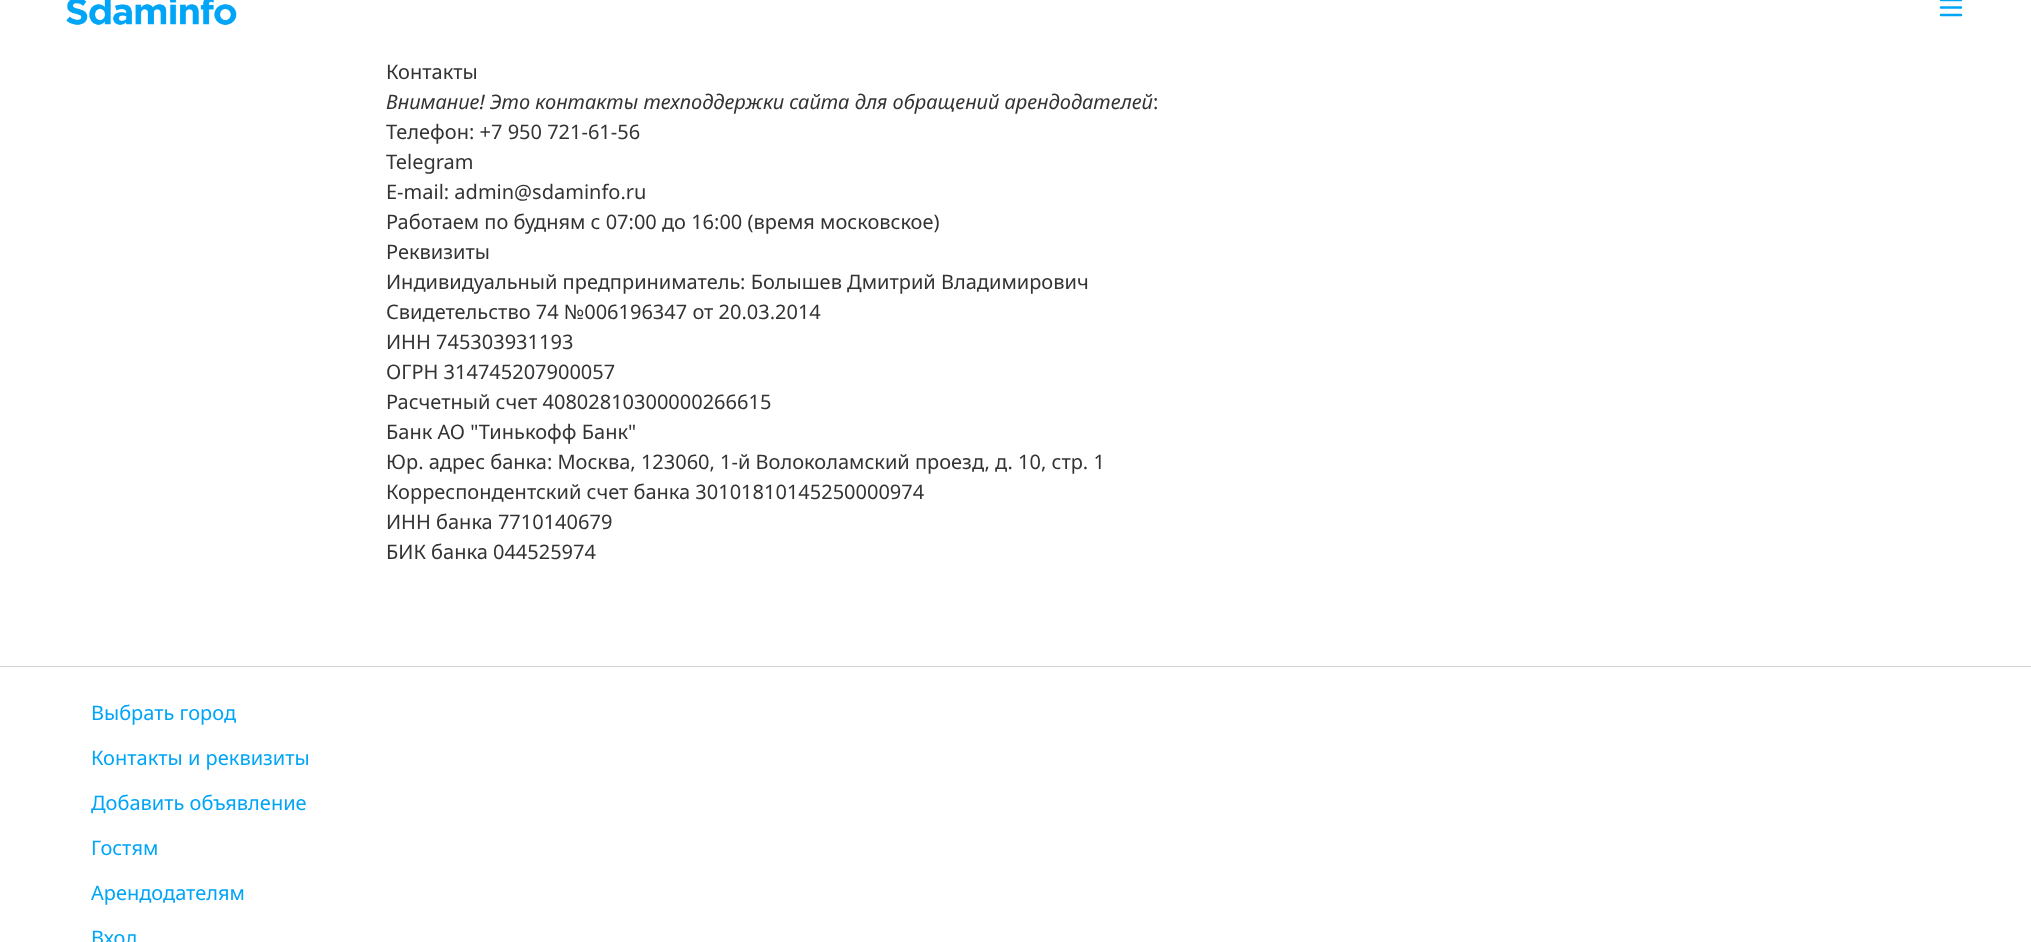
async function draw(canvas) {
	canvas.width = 2031;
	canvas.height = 942;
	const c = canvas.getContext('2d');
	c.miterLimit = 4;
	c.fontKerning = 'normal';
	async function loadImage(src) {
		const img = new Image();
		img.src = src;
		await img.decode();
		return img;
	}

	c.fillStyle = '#fff';
	c.fillRect(0, 0, 2031, 942);
	c.drawImage(await loadImage('img1.png'), 66, 0, 171, 25);
	c.beginPath();
	c.moveTo(1941, 0);
	c.lineTo(1961, 0);
	c.moveTo(1941, 7.5);
	c.lineTo(1961, 7.5);
	c.moveTo(1941, 15);
	c.lineTo(1961, 15);
	c.strokeStyle = '#00a5f7';
	c.lineWidth = 2.5;
	c.lineCap = 'round';
	c.lineJoin = 'round';
	c.stroke();
	c.font = '20px Noto Sans';
	c.fillStyle = '#333';
	c.fillText('Контакты', 386, 79);
	c.font = 'italic 20px Noto Sans';
	c.fillText('Внимание! Это контакты техподдержки сайта для обращений арендодателей', 386, 109);
	c.font = '20px Noto Sans';
	for (const [text, x, y] of [
		[':', 1153, 109],
		['Телефон: +7 950 721-61-56', 386, 139],
		['Telegram', 386, 169],
		['E-mail: admin@sdaminfo.ru', 386, 199],
		['Работаем по будням с 07:00 до 16:00 (время московское)', 386, 229],
		['Реквизиты', 386, 259],
		['Индивидуальный предприниматель: Болышев Дмитрий Владимирович', 386, 289],
		['Свидетельство 74 №006196347 от 20.03.2014', 386, 319],
		['ИНН 745303931193', 386, 349],
		['ОГРН 314745207900057', 386, 379],
		['Расчетный счет 40802810300000266615', 386, 409],
		['Банк АО "Тинькофф Банк"', 386, 439],
		['Юр. адрес банка: Москва, 123060, 1-й Волоколамский проезд, д. 10, стр. 1', 386, 469],
		['Корреспондентский счет банка 30101810145250000974', 386, 499],
		['ИНН банка 7710140679', 386, 529],
		['БИК банка 044525974', 386, 559],
	]) {
		c.fillText(text, x, y);
	}
	c.fillStyle = '#d4d4d4';
	c.fillRect(0, 666, 2031, 1);
	c.fillStyle = '#00a5f7';
	for (const [text, x, y] of [
		['Выбрать город', 91, 720],
		['Контакты и реквизиты', 91, 765],
		['Добавить объявление', 91, 810],
		['Гостям', 91, 855],
		['Арендодателям', 91, 900],
		['Вход', 91, 945],
	]) {
		c.fillText(text, x, y);
	}
}

draw(document.querySelector('canvas'));
